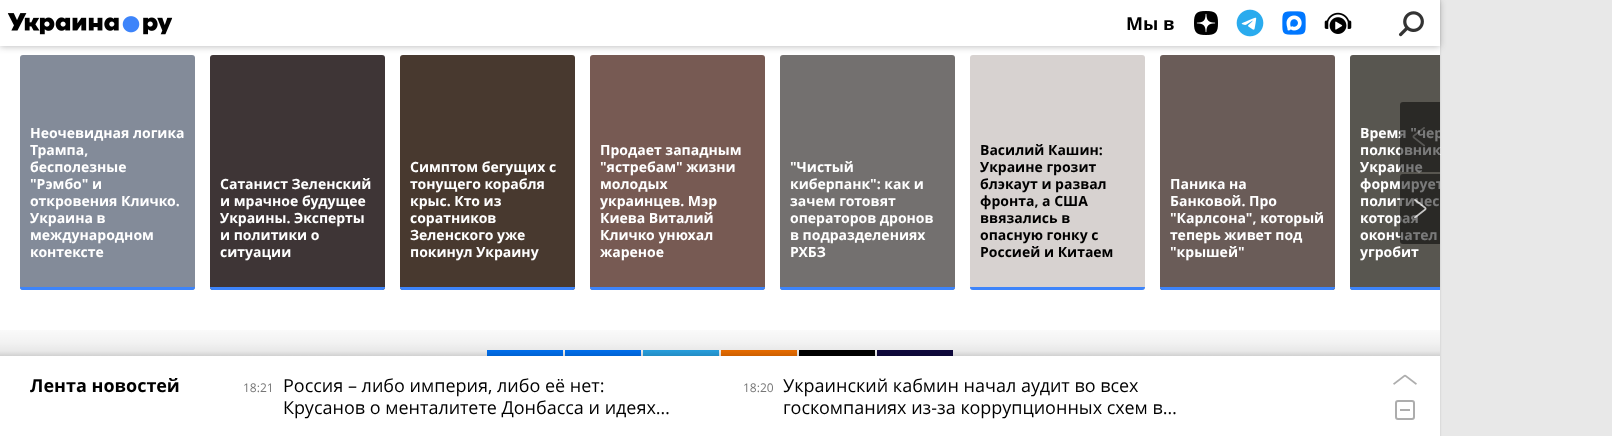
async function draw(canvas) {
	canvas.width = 1612;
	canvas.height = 436;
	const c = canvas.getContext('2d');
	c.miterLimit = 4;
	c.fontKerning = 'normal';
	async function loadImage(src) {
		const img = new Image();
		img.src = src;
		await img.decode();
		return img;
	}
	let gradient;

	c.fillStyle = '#e8e8e8';
	c.fillRect(0, 0, 1612, 436);
	c.fillStyle = '#00000026';
	c.filter = 'blur(1px)';
	c.beginPath();
	c.rect(0, -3, 1440, 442);
	c.fill();
	c.filter = 'none';
	c.fillStyle = '#fff';
	c.fillRect(0, 46, 1440, 390);
	c.fillStyle = '#838b99';
	c.beginPath();
	c.roundRect(20, 55, 175, 235, 3);
	c.fill();
	c.fillStyle = '#3e3536';
	c.beginPath();
	c.roundRect(210, 55, 175, 235, 3);
	c.fill();
	c.fillStyle = '#48392f';
	c.beginPath();
	c.roundRect(400, 55, 175, 235, 3);
	c.fill();
	c.fillStyle = '#775a53';
	c.beginPath();
	c.roundRect(590, 55, 175, 235, 3);
	c.fill();
	c.fillStyle = '#73706f';
	c.beginPath();
	c.roundRect(780, 55, 175, 235, 3);
	c.fill();
	c.fillStyle = '#d7d2d0';
	c.beginPath();
	c.roundRect(970, 55, 175, 235, 3);
	c.fill();
	c.fillStyle = '#6a5c58';
	c.beginPath();
	c.roundRect(1160, 55, 175, 235, 3);
	c.fill();
	c.fillStyle = '#585650';
	c.beginPath();
	c.roundRect(1350, 55, 90, 235, [3, 0, 0, 3]);
	c.fill();
	c.fillStyle = '#20212447';
	c.filter = 'blur(3px)';
	c.beginPath();
	c.rect(0, 1, 1440, 46);
	c.fill();
	c.filter = 'none';
	c.fillStyle = '#fff';
	c.fillRect(0, 0, 1440, 46);
	c.drawImage(await loadImage('img1.png'), 7, 13, 166, 22);
	c.font = 'bold 18px Open Sans';
	c.fillStyle = '#000';
	c.fillText('Мы в', 1126, 30);
	c.drawImage(await loadImage('img2.png'), 1194, 11, 24, 24);
	c.drawImage(await loadImage('img3.png'), 1236, 9, 28, 28);
	c.drawImage(await loadImage('img4.png'), 1282, 11, 24, 24);
	c.drawImage(await loadImage('img5.png'), 1324, 12, 28, 22);
	c.drawImage(await loadImage('img6.png'), 1398, 11, 26, 26);
	c.save();
	c.beginPath();
	c.rect(0, 55, 1440, 235);
	c.clip();
	c.font = 'bold 14px Open Sans';
	c.fillStyle = '#fff';
	c.fillText('Время "чер', 1360, 138);
	c.restore();
	c.font = 'bold 14px Open Sans';
	c.fillStyle = '#fff';
	c.fillText('полковник', 1360, 155);
	c.fillText('Украине', 1360, 172);
	c.fillStyle = '#00000085';
	c.beginPath();
	c.roundRect(1400, 102, 40, 70, [3, 0, 0, 3]);
	c.fill();
	c.drawImage(await loadImage('img7.png'), 1412, 127, 13, 20);
	c.save();
	c.beginPath();
	c.rect(0, 55, 1440, 235);
	c.clip();
	c.fillStyle = '#fff';
	c.fillText('формирует', 1360, 189);
	c.restore();
	c.fillStyle = '#fff';
	for (const [text, x, y] of [
		['политичес', 1360, 206],
		['которая', 1360, 223],
		['окончател', 1360, 240],
	]) {
		c.fillText(text, x, y);
	}
	c.fillStyle = '#00000085';
	c.beginPath();
	c.roundRect(1400, 174, 40, 70, [3, 0, 0, 3]);
	c.fill();
	c.drawImage(await loadImage('img8.png'), 1413, 198, 14, 21);
	c.fillStyle = '#fff';
	for (const [text, x, y] of [
		['Неочевидная логика', 30, 138],
		['Трампа,', 30, 155],
		['бесполезные', 30, 172],
		['"Рэмбо" и', 30, 189],
		['откровения Кличко.', 30, 206],
		['Украина в', 30, 223],
		['международном', 30, 240],
		['контексте', 30, 257],
	]) {
		c.fillText(text, x, y);
	}
	c.fillStyle = '#3d84fa';
	c.beginPath();
	c.roundRect(20, 287, 175, 3, [0, 0, 3, 3]);
	c.fill();
	c.fillStyle = '#fff';
	for (const [text, x, y] of [
		['Сатанист Зеленский', 220, 189],
		['и мрачное будущее', 220, 206],
		['Украины. Эксперты', 220, 223],
		['и политики о', 220, 240],
		['ситуации', 220, 257],
	]) {
		c.fillText(text, x, y);
	}
	c.fillStyle = '#3d84fa';
	c.beginPath();
	c.roundRect(210, 287, 175, 3, [0, 0, 3, 3]);
	c.fill();
	c.fillStyle = '#fff';
	for (const [text, x, y] of [
		['Симптом бегущих с', 410, 172],
		['тонущего корабля', 410, 189],
		['крыс. Кто из', 410, 206],
		['соратников', 410, 223],
		['Зеленского уже', 410, 240],
		['покинул Украину', 410, 257],
	]) {
		c.fillText(text, x, y);
	}
	c.fillStyle = '#3d84fa';
	c.beginPath();
	c.roundRect(400, 287, 175, 3, [0, 0, 3, 3]);
	c.fill();
	c.fillStyle = '#fff';
	for (const [text, x, y] of [
		['Продает западным', 600, 155],
		['"ястребам" жизни', 600, 172],
		['молодых', 600, 189],
		['украинцев. Мэр', 600, 206],
		['Киева Виталий', 600, 223],
		['Кличко унюхал', 600, 240],
		['жареное', 600, 257],
	]) {
		c.fillText(text, x, y);
	}
	c.fillStyle = '#3d84fa';
	c.beginPath();
	c.roundRect(590, 287, 175, 3, [0, 0, 3, 3]);
	c.fill();
	c.fillStyle = '#fff';
	for (const [text, x, y] of [
		['"Чистый', 790, 172],
		['киберпанк": как и', 790, 189],
		['зачем готовят', 790, 206],
		['операторов дронов', 790, 223],
		['в подразделениях', 790, 240],
		['РХБЗ', 790, 257],
	]) {
		c.fillText(text, x, y);
	}
	c.fillStyle = '#3d84fa';
	c.beginPath();
	c.roundRect(780, 287, 175, 3, [0, 0, 3, 3]);
	c.fill();
	c.fillStyle = '#000';
	for (const [text, x, y] of [
		['Василий Кашин:', 980, 155],
		['Украине грозит', 980, 172],
		['блэкаут и развал', 980, 189],
		['фронта, а США', 980, 206],
		['ввязались в', 980, 223],
		['опасную гонку с', 980, 240],
		['Россией и Китаем', 980, 257],
	]) {
		c.fillText(text, x, y);
	}
	c.fillStyle = '#3d84fa';
	c.beginPath();
	c.roundRect(970, 287, 175, 3, [0, 0, 3, 3]);
	c.fill();
	gradient = c.createLinearGradient(1248, 139, 1248, 292);
	gradient.addColorStop(0, '#6a5c5800');
	gradient.addColorStop(1, '#6a5c58');
	c.fillStyle = gradient;
	c.beginPath();
	c.roundRect(1160, 139, 175, 151, [0, 0, 3, 3]);
	c.fill();
	c.fillStyle = '#fff';
	for (const [text, x, y] of [
		['Паника на', 1170, 189],
		['Банковой. Про', 1170, 206],
		['"Карлсона", который', 1170, 223],
		['теперь живет под', 1170, 240],
		['"крышей"', 1170, 257],
	]) {
		c.fillText(text, x, y);
	}
	c.fillStyle = '#3d84fa';
	c.beginPath();
	c.roundRect(1160, 287, 175, 3, [0, 0, 3, 3]);
	c.fill();
	c.fillStyle = '#fff';
	c.fillText('угробит', 1360, 257);
	c.fillStyle = '#3d84fa';
	c.beginPath();
	c.roundRect(1350, 287, 90, 3, [0, 0, 0, 3]);
	c.fill();
	for (const [x, y, w, h, color] of [
		[487, 350, 76, 6, '#07f'],
		[565, 350, 76, 6, '#07f'],
		[643, 350, 76, 6, '#2aabee'],
		[721, 350, 76, 6, '#f97400'],
		[799, 350, 76, 6, '#000'],
		[877, 350, 76, 6, '#100943'],
	]) {
		c.fillStyle = color;
		c.fillRect(x, y, w, h);
	}
	gradient = c.createLinearGradient(720, 321, 720, 356);
	gradient.addColorStop(0, '#00000000');
	gradient.addColorStop(0.61, '#0000000d');
	gradient.addColorStop(0.86, '#00000017');
	gradient.addColorStop(1, '#0000002e');
	c.fillStyle = gradient;
	c.fillRect(0, 330, 1440, 26);
	c.font = 'bold 18px Open Sans';
	c.fillStyle = '#000';
	c.fillText('Лента новостей', 30, 392);
	c.font = '12px Open Sans';
	c.fillStyle = '#767676';
	c.fillText('18:21', 243, 392);
	c.font = '18px Open Sans';
	c.fillStyle = '#000';
	c.fillText('Россия – либо империя, либо её нет:', 283, 392);
	c.fillText('Крусанов о менталитете Донбасса и идеях…', 283, 414);
	c.font = '12px Open Sans';
	c.fillStyle = '#767676';
	c.fillText('18:20', 743, 392);
	c.font = '18px Open Sans';
	c.fillStyle = '#000';
	c.fillText('Украинский кабмин начал аудит во всех', 783, 392);
	c.fillText('госкомпаниях из-за коррупционных схем в…', 783, 414);
	c.drawImage(await loadImage('img9.png'), 1393, 374, 24, 11);
	c.beginPath();
	c.roundRect(1396, 401, 18, 18, 2);
	c.strokeStyle = '#adadad';
	c.lineWidth = 2;
	c.stroke();
	c.fillStyle = '#adadad';
	c.fillRect(1400, 409, 10, 2);
}

draw(document.querySelector('canvas'));
